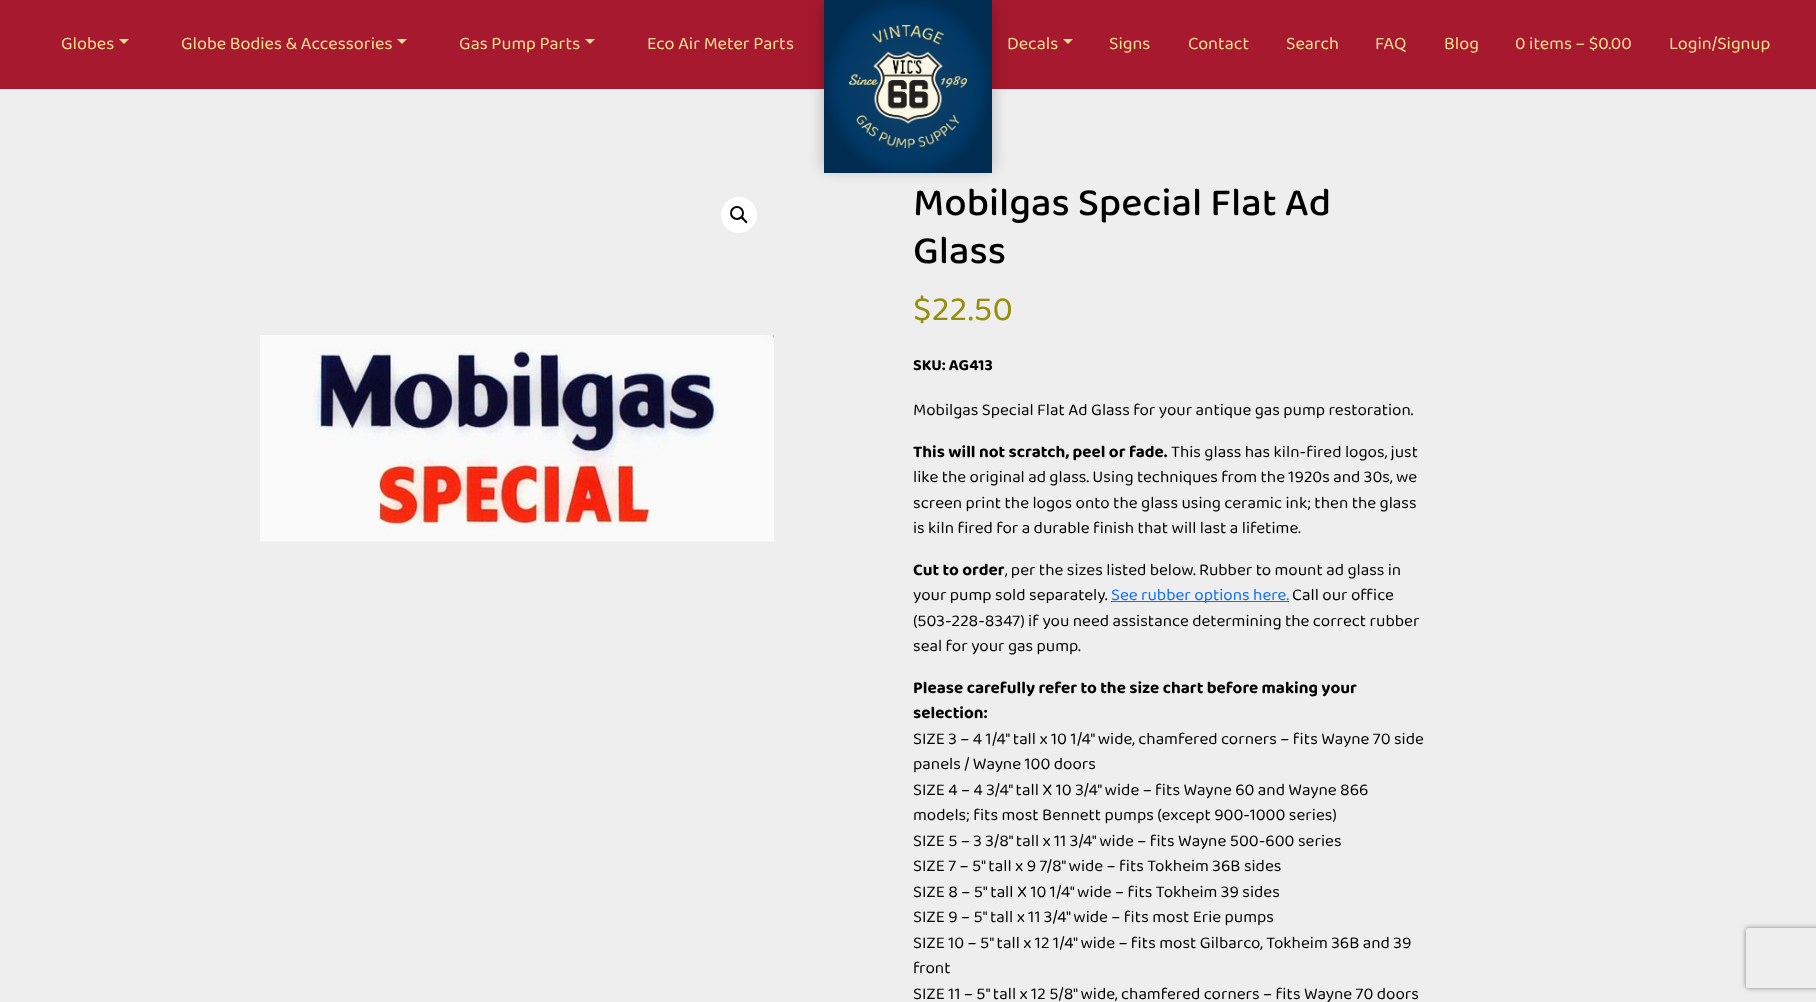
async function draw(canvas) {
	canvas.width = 1816;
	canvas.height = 1002;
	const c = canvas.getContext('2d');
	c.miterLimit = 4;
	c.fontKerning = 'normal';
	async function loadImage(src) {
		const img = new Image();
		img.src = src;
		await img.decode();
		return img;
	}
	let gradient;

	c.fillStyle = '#eee';
	c.fillRect(0, 0, 1816, 1002);
	c.fillStyle = '#a6192e';
	c.fillRect(0, 0, 1816, 89);
	c.font = '18px "Baloo 2"';
	c.fillStyle = '#f8e08e';
	c.fillText('Globes', 61, 49);
	c.beginPath();
	c.moveTo(119, 39);
	c.lineTo(129, 39);
	c.lineTo(124, 44);
	c.closePath();
	c.fill();
	c.fillText('Globe Bodies & Accessories', 181, 49);
	c.beginPath();
	c.moveTo(397, 39);
	c.lineTo(407, 39);
	c.lineTo(402, 44);
	c.closePath();
	c.fill();
	c.fillText('Gas Pump Parts', 459, 49);
	c.beginPath();
	c.moveTo(585, 39);
	c.lineTo(595, 39);
	c.lineTo(590, 44);
	c.closePath();
	c.fill();
	c.fillText('Eco Air Meter Parts', 647, 49);
	c.fillStyle = '#00000040';
	c.filter = 'blur(7.5px)';
	c.beginPath();
	c.rect(824, 4, 168, 165);
	c.fill();
	c.filter = 'none';
	gradient = c.createRadialGradient(908, 80.31, 0, 908, 80.31, 84);
	gradient.addColorStop(0, '#164469');
	gradient.addColorStop(0.85, '#003865');
	gradient.addColorStop(1, '#002d51');
	c.fillStyle = gradient;
	c.beginPath();
	c.rect(824, 0, 168, 173);
	c.save();
	c.clip();
	c.scale(1, 91 / 84);
	c.fillRect(0, 0, 1816, 925);
	c.restore();
	c.drawImage(await loadImage('img1.png'), 849, 25, 118, 123);
	c.fillStyle = '#f8e08e';
	c.fillText('Decals', 1007, 49);
	c.beginPath();
	c.moveTo(1063, 39);
	c.lineTo(1073, 39);
	c.lineTo(1068, 44);
	c.closePath();
	c.fill();
	for (const [text, x, y] of [
		['Signs', 1109, 49],
		['Contact', 1188, 49],
		['Search', 1286, 49],
		['FAQ', 1375, 49],
		['Blog', 1444, 49],
		['0 items – $0.00', 1515, 49],
		['Login/Signup', 1669, 49],
	]) {
		c.fillText(text, x, y);
	}
	c.fillStyle = '#fff';
	c.beginPath();
	c.arc(739, 215, 18, 0, 2 * Math.PI);
	c.fill();
	c.beginPath();
	c.arc(737, 213, 6, 0, 2 * Math.PI);
	c.strokeStyle = '#000';
	c.lineWidth = 2;
	c.stroke();
	c.fillStyle = '#000';
	c.beginPath();
	c.moveTo(741.5, 217);
	c.bezierCurveTo(743, 216, 744.5, 218.5, 745, 219.5);
	c.bezierCurveTo(745.5, 220, 748.5, 221.5, 747, 223);
	c.bezierCurveTo(746, 224, 744.5, 221.5, 743.5, 220.5);
	c.bezierCurveTo(743, 220, 740.5, 218.5, 741.5, 217);
	c.closePath();
	c.fill();
	c.drawImage(await loadImage('img2.png'), 260, 334, 514, 208);
	c.font = '500 40px "Baloo 2"';
	c.fillText('Mobilgas Special Flat Ad', 913, 215);
	c.fillText('Glass', 913, 263);
	c.font = '35px "Baloo 2"';
	c.fillStyle = '#958e09';
	c.fillText('$', 913, 320);
	c.fillText('22.50', 932, 320);
	c.font = 'bold 16px "Baloo 2"';
	c.fillStyle = '#000';
	c.fillText('SKU: AG413', 913, 370);
	c.font = '17px "Baloo 2"';
	c.fillText('Mobilgas Special Flat Ad Glass for your antique gas pump restoration.', 913, 415);
	c.font = 'bold 17px "Baloo 2"';
	c.fillText('This will not scratch, peel or fade.', 913, 457);
	c.font = '17px "Baloo 2"';
	for (const [text, x, y] of [
		['This glass has kiln-fired logos, just', 1171, 457],
		['like the original ad glass. Using techniques from the 1920s and 30s, we', 913, 482],
		['screen print the logos onto the glass using ceramic ink; then the glass', 913, 508],
		['is kiln fired for a durable finish that will last a lifetime.', 913, 533],
	]) {
		c.fillText(text, x, y);
	}
	c.font = 'bold 17px "Baloo 2"';
	c.fillText('Cut to order', 913, 575);
	c.font = '17px "Baloo 2"';
	c.fillText(', per the sizes listed below. Rubber to mount ad glass in', 1005, 575);
	c.fillText('your pump sold separately.', 913, 600);
	c.fillStyle = '#0d6efd';
	c.fillRect(1111, 601, 178, 1);
	c.fillText('See rubber options here.', 1111, 600);
	c.fillStyle = '#000';
	for (const [text, x, y] of [
		['Call our office', 1292, 600],
		['(503-228-8347) if you need assistance determining the correct rubber', 913, 626],
		['seal for your gas pump.', 913, 651],
	]) {
		c.fillText(text, x, y);
	}
	c.font = 'bold 17px "Baloo 2"';
	c.fillText('Please carefully refer to the size chart before making your', 913, 693);
	c.fillText('selection:', 913, 718);
	c.font = '17px "Baloo 2"';
	for (const [text, x, y] of [
		['SIZE 3 – 4 1/4″ tall x 10 1/4″ wide, chamfered corners – fits Wayne 70 side', 913, 744],
		['panels / Wayne 100 doors', 913, 769],
		['SIZE 4 – 4 3/4″ tall X 10 3/4″ wide – fits Wayne 60 and Wayne 866', 913, 795],
		['models; fits most Bennett pumps (except 900-1000 series)', 913, 820],
		['SIZE 5 – 3 3/8″ tall x 11 3/4″ wide – fits Wayne 500-600 series', 913, 846],
		['SIZE 7 – 5″ tall x 9 7/8″ wide – fits Tokheim 36B sides', 913, 871],
		['SIZE 8 – 5″ tall X 10 1/4″ wide – fits Tokheim 39 sides', 913, 897],
		['SIZE 9 – 5″ tall x 11 3/4″ wide – fits most Erie pumps', 913, 922],
		['SIZE 10 – 5″ tall x 12 1/4″ wide – fits most Gilbarco, Tokheim 36B and 39', 913, 948],
		['front', 913, 973],
		['SIZE 11 – 5″ tall x 12 5/8″ wide, chamfered corners – fits Wayne 70 doors', 913, 999],
	]) {
		c.fillText(text, x, y);
	}
	c.save();
	c.beginPath();
	c.moveTo(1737, 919);
	c.lineTo(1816, 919);
	c.lineTo(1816, 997);
	c.lineTo(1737, 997);
	c.closePath();
	c.moveTo(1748, 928);
	c.lineTo(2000, 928);
	c.bezierCurveTo(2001, 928, 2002, 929, 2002, 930);
	c.lineTo(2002, 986);
	c.bezierCurveTo(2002, 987, 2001, 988, 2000, 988);
	c.lineTo(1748, 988);
	c.bezierCurveTo(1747, 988, 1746, 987, 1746, 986);
	c.lineTo(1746, 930);
	c.bezierCurveTo(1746, 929, 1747, 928, 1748, 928);
	c.closePath();
	c.clip('evenodd');
	c.fillStyle = '#808080';
	c.filter = 'blur(2.5px)';
	c.beginPath();
	c.roundRect(1746, 928, 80, 60, 2);
	c.fill();
	c.filter = 'none';
	c.restore();
}

draw(document.querySelector('canvas'));
